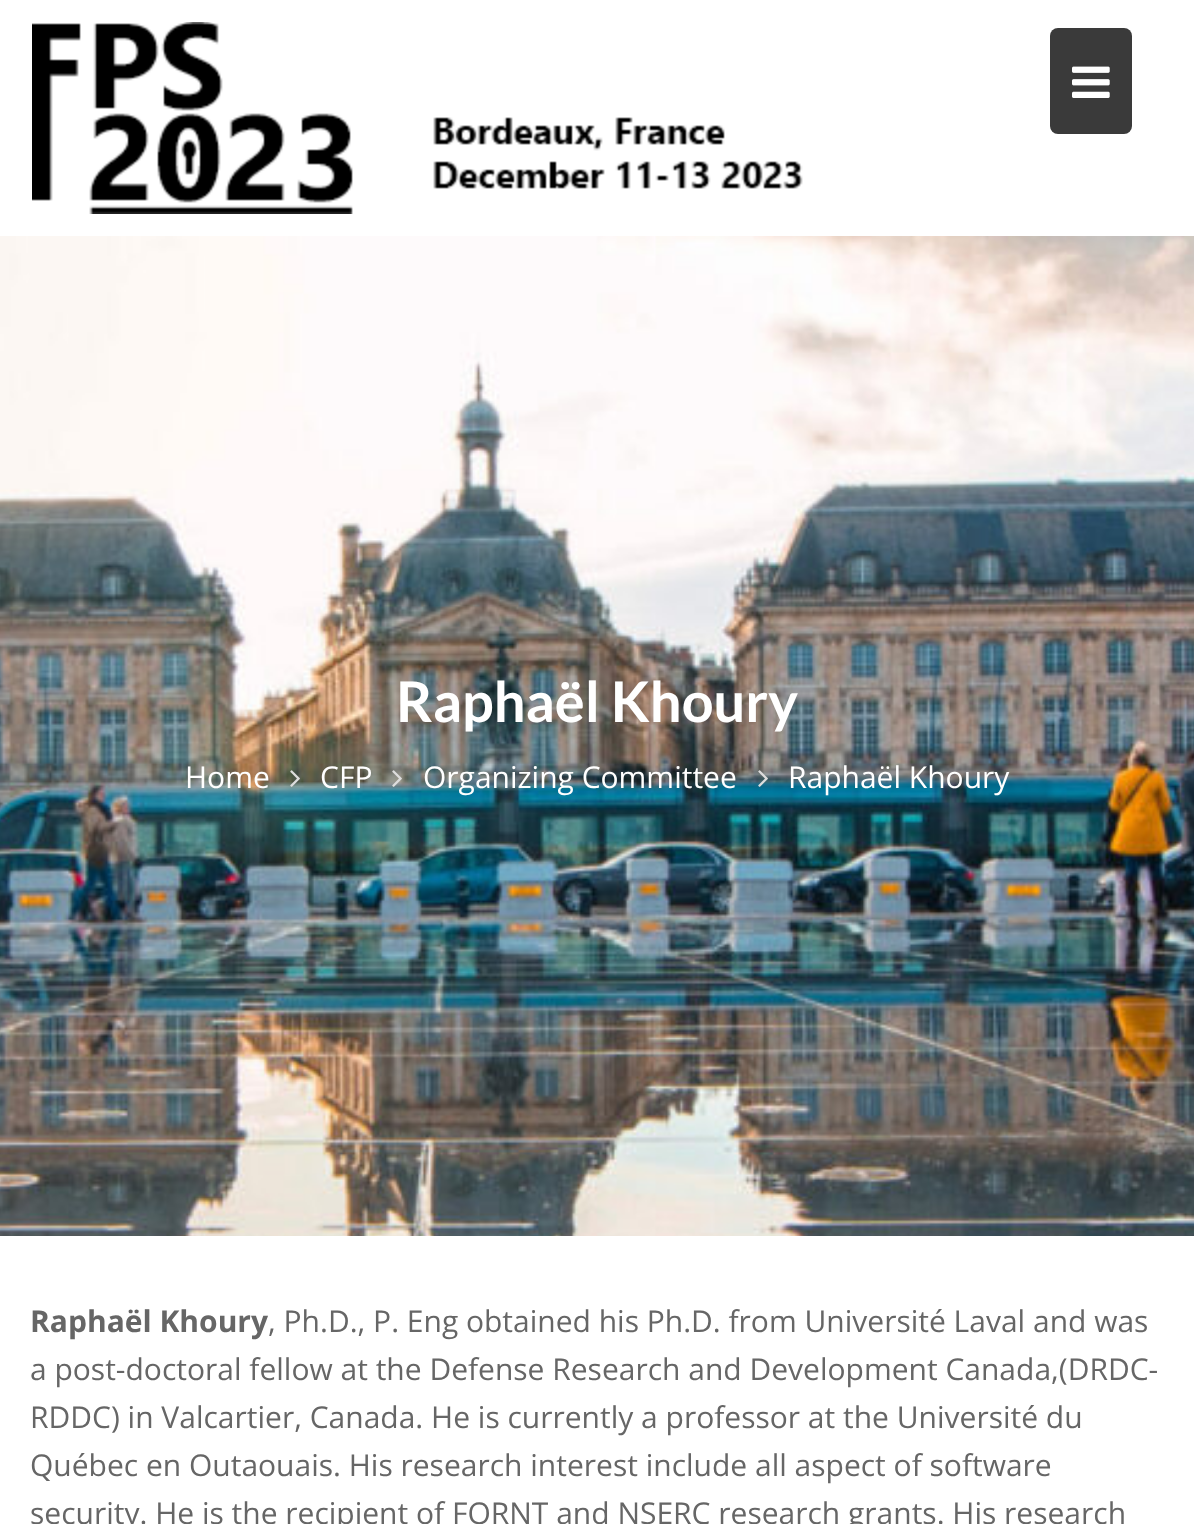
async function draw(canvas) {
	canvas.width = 1194;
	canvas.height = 1524;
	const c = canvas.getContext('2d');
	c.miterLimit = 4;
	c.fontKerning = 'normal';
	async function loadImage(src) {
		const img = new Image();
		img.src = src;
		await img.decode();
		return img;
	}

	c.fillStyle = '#fff';
	c.fillRect(0, 0, 1194, 1524);
	c.drawImage(await loadImage('img1.png'), 32, 22, 771, 192);
	c.fillStyle = '#3a3a3a';
	c.beginPath();
	c.roundRect(1050, 28, 82, 106, 8);
	c.fill();
	c.drawImage(await loadImage('img2.png'), 1072, 66, 38, 32);
	c.drawImage(await loadImage('img3.png'), 0, 236, 1194, 1000);
	c.font = 'bold 56px Lato';
	c.fillStyle = '#fff';
	c.fillText('Raphaël Khoury', 396, 722);
	c.font = '30px Open Sans';
	c.fillText('Home', 185, 788);
	c.drawImage(await loadImage('img4.png'), 290, 770, 10, 17);
	c.fillText('CFP', 320, 788);
	c.drawImage(await loadImage('img5.png'), 392, 770, 10, 17);
	c.fillText('Organizing Committee', 423, 788);
	c.drawImage(await loadImage('img6.png'), 758, 770, 10, 17);
	c.fillText('Raphaël Khoury', 788, 788);
	c.font = 'bold 30px Open Sans';
	c.fillStyle = '#666';
	c.fillText('Raphaël Khoury', 30, 1332);
	c.font = '30px Open Sans';
	for (const [text, x, y] of [
		[', Ph.D., P. Eng obtained his Ph.D. from Université Laval and was', 268, 1332],
		['a post-doctoral fellow at the Defense Research and Development Canada,(DRDC-', 30, 1380],
		['RDDC) in Valcartier, Canada. He is currently a professor at the Université du', 30, 1428],
		['Québec en Outaouais. His research interest include all aspect of software', 30, 1476],
		['security. He is the recipient of FQRNT and NSERC research grants. His research', 30, 1524],
	]) {
		c.fillText(text, x, y);
	}
}

draw(document.querySelector('canvas'));
